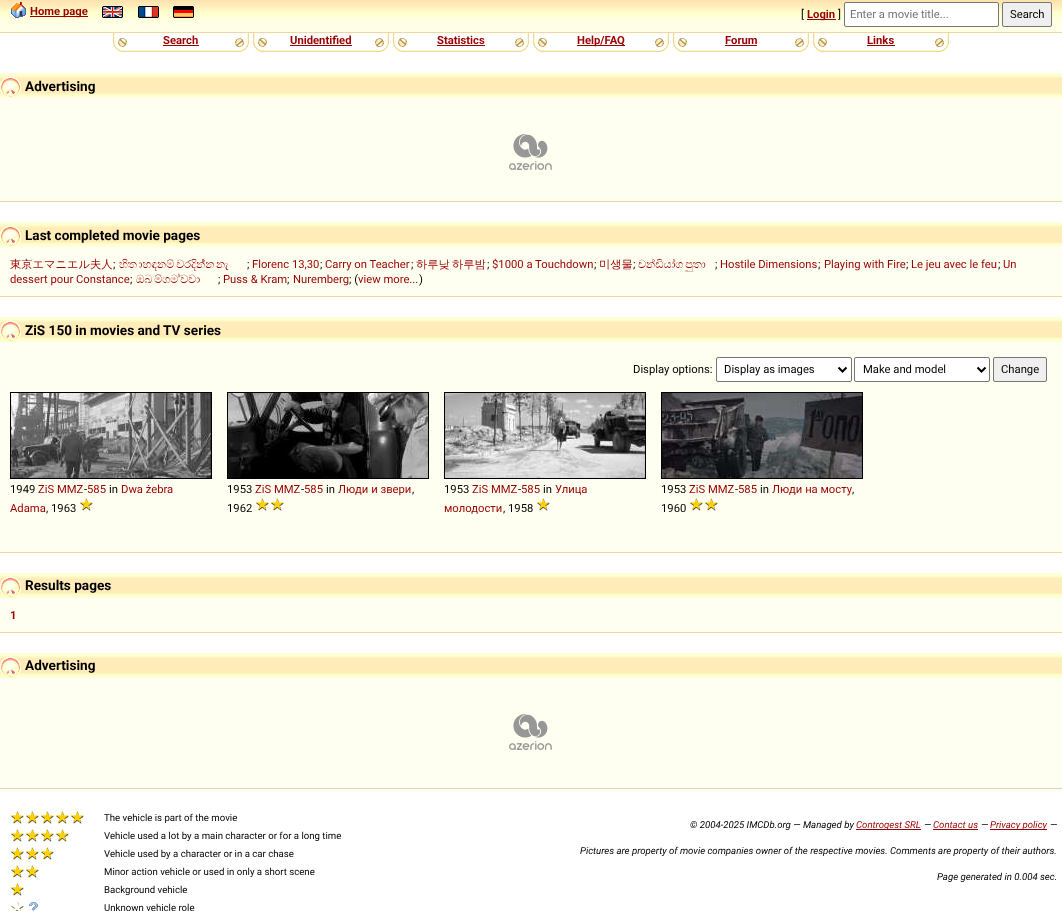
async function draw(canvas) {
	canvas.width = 1062;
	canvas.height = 911;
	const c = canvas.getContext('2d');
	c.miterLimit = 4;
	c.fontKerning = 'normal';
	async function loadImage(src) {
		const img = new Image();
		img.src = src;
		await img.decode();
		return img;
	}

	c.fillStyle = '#fff';
	c.fillRect(0, 0, 1062, 911);
	c.fillStyle = '#ffffe7';
	c.fillRect(0, 22, 1062, 10);
	c.drawImage(await loadImage('img1.png'), 0, 0, 1062, 22);
	c.fillStyle = '#efd6a3';
	c.fillRect(0, 32, 1062, 1);
	c.drawImage(await loadImage('img2.png'), 11, 2, 15, 16);
	c.fillStyle = '#900';
	c.fillRect(30, 16, 58, 1);
	c.font = 'bold 11.25px Roboto';
	c.fillText('Home page', 30, 15);
	c.drawImage(await loadImage('img3.png'), 102, 6, 21, 12);
	c.drawImage(await loadImage('img4.png'), 138, 6, 21, 12);
	c.drawImage(await loadImage('img5.png'), 173, 6, 21, 12);
	c.font = '11.25px Roboto';
	c.fillStyle = '#000';
	c.fillText('[', 801, 18);
	c.fillStyle = '#900';
	c.fillRect(807, 19, 29, 1);
	c.font = 'bold 11.25px Roboto';
	c.fillText('Login', 807, 18);
	c.font = '11.25px Roboto';
	c.fillStyle = '#000';
	c.fillText(']', 838, 18);
	c.fillStyle = '#fff';
	c.beginPath();
	c.roundRect(844.5, 2.5, 154, 24, 1.5);
	c.fill();
	c.strokeStyle = '#767676';
	c.stroke();
	c.fillStyle = '#757575';
	c.fillText('Enter a movie title...', 850, 18);
	c.fillStyle = '#efefef';
	c.beginPath();
	c.roundRect(1002.5, 2.5, 49, 24, 1.5);
	c.fill();
	c.stroke();
	c.fillStyle = '#000';
	c.fillText('Search', 1010, 18);
	c.drawImage(await loadImage('img6.png'), 113, 33, 136, 19);
	c.font = 'bold 11.25px Roboto';
	c.fillStyle = '#900';
	c.fillText('Search', 163, 44);
	c.fillRect(163, 45, 36, 1);
	c.drawImage(await loadImage('img6.png'), 253, 33, 136, 19);
	c.fillText('Unidentified', 290, 44);
	c.fillRect(290, 45, 62, 1);
	c.drawImage(await loadImage('img6.png'), 393, 33, 136, 19);
	c.fillText('Statistics', 437, 44);
	c.fillRect(437, 45, 48, 1);
	c.drawImage(await loadImage('img6.png'), 533, 33, 136, 19);
	c.fillRect(577, 45, 48, 1);
	c.fillText('Help/FAQ', 577, 44);
	c.drawImage(await loadImage('img6.png'), 673, 33, 136, 19);
	c.fillText('Forum', 725, 44);
	c.fillRect(725, 45, 32, 1);
	c.drawImage(await loadImage('img6.png'), 813, 33, 136, 19);
	c.fillText('Links', 867, 44);
	for (const [x, y, w, h, color] of [
		[867, 45, 28, 1, '#900'],
		[0, 98, 1062, 103, '#fffff1'],
		[0, 201, 1062, 1, '#efd6a3'],
		[0, 73, 1062, 25, '#ffffd7'],
	]) {
		c.fillStyle = color;
		c.fillRect(x, y, w, h);
	}
	c.drawImage(await loadImage('img7.png'), 0, 75, 1062, 21);
	c.drawImage(await loadImage('img8.png'), 0, 77, 21, 20);
	c.font = 'bold 13.6px Roboto';
	c.fillStyle = '#000';
	c.fillText('Advertising', 25, 91);
	c.drawImage(await loadImage('img9.png'), 509, 134, 43, 36);
	for (const [x, y, w, h, color] of [
		[0, 247, 1062, 49, '#fffff1'],
		[0, 296, 1062, 1, '#efd6a3'],
		[0, 222, 1062, 25, '#ffffd7'],
	]) {
		c.fillStyle = color;
		c.fillRect(x, y, w, h);
	}
	c.drawImage(await loadImage('img7.png'), 0, 224, 1062, 21);
	c.drawImage(await loadImage('img8.png'), 0, 226, 21, 20);
	c.fillStyle = '#000';
	c.fillText('Last completed movie pages', 25, 240);
	c.font = '500 11.25px WenQuanYi Zen Hei';
	c.fillStyle = '#900';
	c.fillText('東京エマニエル夫人', 10, 268);
	c.font = '11.25px Roboto';
	c.fillStyle = '#000';
	c.fillText(';', 113, 268);
	c.wordSpacing = '-1px';
	c.font = '11.25px FreeSerif';
	c.fillStyle = '#900';
	c.fillText('හිත හොඳනම් වරදින්නේ නැ', 119, 268);
	c.wordSpacing = '0px';
	c.font = '11.25px Roboto';
	c.fillText('Florenc 13,30', 252, 268);
	c.fillText('Carry on Teacher', 325, 268);
	c.wordSpacing = '-1px';
	c.font = '500 11.25px WenQuanYi Zen Hei';
	c.fillText('하루낮 하루밤', 416, 268);
	c.wordSpacing = '0px';
	c.font = '11.25px Roboto';
	c.fillText('$1000 a Touchdown', 492, 268);
	c.font = '500 11.25px WenQuanYi Zen Hei';
	c.fillText('미생물', 599, 268);
	c.wordSpacing = '-1px';
	c.font = '11.25px FreeSerif';
	c.fillText('චන්ඩියාගේ පුතා', 638, 268);
	c.wordSpacing = '0px';
	c.font = '11.25px Roboto';
	for (const [text, x, y] of [
		['Hostile Dimensions', 720, 268],
		['Playing with Fire', 824, 268],
		['Le jeu avec le feu', 911, 268],
		['Un', 1003, 268],
	]) {
		c.fillText(text, x, y);
	}
	c.fillStyle = '#000';
	for (const [text, x, y] of [
		[';', 247, 268],
		[';', 320, 268],
		[';', 411, 268],
		[';', 487, 268],
		[';', 594, 268],
		[';', 633, 268],
		[';', 715, 268],
		[';', 818, 268],
		[';', 906, 268],
		[';', 998, 268],
	]) {
		c.fillText(text, x, y);
	}
	c.fillStyle = '#900';
	c.fillText('dessert pour Constance', 10, 283);
	c.fillStyle = '#000';
	c.fillText(';', 130, 283);
	c.wordSpacing = '-1px';
	c.font = '11.25px FreeSerif';
	c.fillStyle = '#900';
	c.fillText('ඔබ මගේම වේවා', 136, 283);
	c.wordSpacing = '0px';
	c.font = '11.25px Roboto';
	c.fillStyle = '#000';
	c.fillText(';', 218, 283);
	c.fillStyle = '#900';
	c.fillText('Puss & Kram', 223, 283);
	c.fillStyle = '#000';
	c.fillText(';', 287, 283);
	c.fillStyle = '#900';
	c.fillText('Nuremberg', 293, 283);
	c.fillStyle = '#000';
	c.fillText('; (', 349, 283);
	c.fillStyle = '#900';
	c.fillText('view more...', 358, 283);
	c.fillStyle = '#000';
	c.fillText(')', 419, 283);
	for (const [x, y, w, h, color] of [
		[0, 342, 1062, 210, '#fffff1'],
		[0, 552, 1062, 1, '#efd6a3'],
		[0, 317, 1062, 25, '#ffffd7'],
	]) {
		c.fillStyle = color;
		c.fillRect(x, y, w, h);
	}
	c.drawImage(await loadImage('img7.png'), 0, 319, 1062, 21);
	c.drawImage(await loadImage('img8.png'), 0, 321, 21, 20);
	c.font = 'bold 13.6px Roboto';
	c.fillStyle = '#000';
	c.fillText('ZiS 150 in movies and TV series', 25, 335);
	c.font = '11.25px Roboto';
	c.fillText('Display options:', 633, 373);
	c.fillStyle = '#fff';
	c.beginPath();
	c.roundRect(716.5, 357.5, 135, 24, 1.5);
	c.fill();
	c.stroke();
	c.beginPath();
	c.moveTo(838.5, 367.5);
	c.lineTo(842.5, 371.5);
	c.lineTo(846.5, 367.5);
	c.strokeStyle = '#000';
	c.lineWidth = 2;
	c.stroke();
	c.fillStyle = '#000';
	c.fillText('Display as images', 724, 373);
	c.fillStyle = '#fff';
	c.beginPath();
	c.roundRect(854.5, 357.5, 135, 24, 1.5);
	c.fill();
	c.strokeStyle = '#767676';
	c.lineWidth = 1;
	c.stroke();
	c.beginPath();
	c.moveTo(977.5, 367.5);
	c.lineTo(981.5, 371.5);
	c.lineTo(985.5, 367.5);
	c.strokeStyle = '#000';
	c.lineWidth = 2;
	c.stroke();
	c.fillStyle = '#000';
	c.fillText('Make and model', 863, 373);
	c.fillStyle = '#efefef';
	c.beginPath();
	c.roundRect(993.5, 357.5, 53, 24, 1.5);
	c.fill();
	c.strokeStyle = '#767676';
	c.lineWidth = 1;
	c.stroke();
	c.fillStyle = '#000';
	c.fillText('Change', 1001, 373);
	c.strokeStyle = '#000';
	c.strokeRect(10.5, 392.5, 201, 86);
	c.drawImage(await loadImage('img10.png'), 11, 393, 200, 85);
	c.fillText('1949', 10, 493);
	c.fillStyle = '#900';
	c.fillText('ZiS MMZ', 38, 493);
	c.fillStyle = '#000';
	c.fillText('-', 84, 493);
	c.fillStyle = '#900';
	c.fillText('585', 87, 493);
	c.fillStyle = '#000';
	c.fillText('in', 109, 493);
	c.fillStyle = '#900';
	c.fillText('Dwa żebra', 121, 493);
	c.fillText('Adama', 10, 512);
	c.fillStyle = '#000';
	c.fillText(', 1963', 46, 512);
	c.drawImage(await loadImage('img11.png'), 80, 498, 13, 13);
	c.strokeRect(227.5, 392.5, 201, 86);
	c.drawImage(await loadImage('img12.png'), 228, 393, 200, 85);
	c.fillText('1953', 227, 493);
	c.fillStyle = '#900';
	c.fillText('ZiS MMZ', 255, 493);
	c.fillStyle = '#000';
	c.fillText('-', 301, 493);
	c.fillStyle = '#900';
	c.fillText('585', 304, 493);
	c.fillStyle = '#000';
	c.fillText('in', 326, 493);
	c.fillStyle = '#900';
	c.fillText('Люди и звери', 338, 493);
	c.fillStyle = '#000';
	c.fillText(',', 412, 493);
	c.fillText('1962', 227, 512);
	c.drawImage(await loadImage('img11.png'), 256, 498, 13, 13);
	c.drawImage(await loadImage('img11.png'), 271, 498, 13, 13);
	c.strokeRect(444.5, 392.5, 201, 86);
	c.drawImage(await loadImage('img13.png'), 445, 393, 200, 85);
	c.fillText('1953', 444, 493);
	c.fillStyle = '#900';
	c.fillText('ZiS MMZ', 472, 493);
	c.fillStyle = '#000';
	c.fillText('-', 518, 493);
	c.fillStyle = '#900';
	c.fillText('585', 521, 493);
	c.fillStyle = '#000';
	c.fillText('in', 543, 493);
	c.fillStyle = '#900';
	c.fillText('Улица', 555, 493);
	c.fillText('молодости', 444, 512);
	c.fillStyle = '#000';
	c.fillText(', 1958', 503, 512);
	c.drawImage(await loadImage('img11.png'), 537, 498, 13, 13);
	c.strokeRect(661.5, 392.5, 201, 86);
	c.drawImage(await loadImage('img14.png'), 662, 393, 200, 85);
	c.fillText('1953', 661, 493);
	c.fillStyle = '#900';
	c.fillText('ZiS MMZ', 689, 493);
	c.fillStyle = '#000';
	c.fillText('-', 735, 493);
	c.fillStyle = '#900';
	c.fillText('585', 738, 493);
	c.fillStyle = '#000';
	c.fillText('in', 760, 493);
	c.fillStyle = '#900';
	c.fillText('Люди на мосту', 772, 493);
	c.fillStyle = '#000';
	c.fillText(',', 852, 493);
	c.fillText('1960', 661, 512);
	c.drawImage(await loadImage('img11.png'), 690, 498, 13, 13);
	c.drawImage(await loadImage('img11.png'), 705, 498, 13, 13);
	for (const [x, y, w, h, color] of [
		[0, 598, 1062, 34, '#fffff1'],
		[0, 632, 1062, 1, '#efd6a3'],
		[0, 573, 1062, 25, '#ffffd7'],
	]) {
		c.fillStyle = color;
		c.fillRect(x, y, w, h);
	}
	c.drawImage(await loadImage('img7.png'), 0, 575, 1062, 21);
	c.drawImage(await loadImage('img8.png'), 0, 577, 21, 20);
	c.font = 'bold 13.6px Roboto';
	c.fillStyle = '#000';
	c.fillText('Results pages', 25, 590);
	c.font = 'bold 11.25px Roboto';
	c.fillStyle = '#900';
	c.fillText('1', 10, 619);
	for (const [x, y, w, h, color] of [
		[0, 678, 1062, 110, '#fffff1'],
		[0, 788, 1062, 1, '#efd6a3'],
		[0, 653, 1062, 25, '#ffffd7'],
	]) {
		c.fillStyle = color;
		c.fillRect(x, y, w, h);
	}
	c.drawImage(await loadImage('img7.png'), 0, 655, 1062, 21);
	c.drawImage(await loadImage('img8.png'), 0, 657, 21, 20);
	c.font = 'bold 13.6px Roboto';
	c.fillStyle = '#000';
	c.fillText('Advertising', 25, 670);
	c.drawImage(await loadImage('img9.png'), 509, 714, 43, 36);
	c.drawImage(await loadImage('img15.png'), 11, 811, 13, 13);
	c.drawImage(await loadImage('img15.png'), 26, 811, 13, 13);
	c.drawImage(await loadImage('img15.png'), 41, 811, 13, 13);
	c.drawImage(await loadImage('img15.png'), 56, 811, 13, 13);
	c.drawImage(await loadImage('img15.png'), 71, 811, 13, 13);
	c.font = '9.65px Roboto';
	c.fillText('The vehicle is part of the movie', 104, 821);
	c.drawImage(await loadImage('img15.png'), 11, 829, 13, 13);
	c.drawImage(await loadImage('img15.png'), 26, 829, 13, 13);
	c.drawImage(await loadImage('img15.png'), 41, 829, 13, 13);
	c.drawImage(await loadImage('img15.png'), 56, 829, 13, 13);
	c.fillText('Vehicle used a lot by a main character or for a long time', 104, 839);
	c.drawImage(await loadImage('img15.png'), 11, 847, 13, 13);
	c.drawImage(await loadImage('img15.png'), 26, 847, 13, 13);
	c.drawImage(await loadImage('img15.png'), 41, 847, 13, 13);
	c.fillText('Vehicle used by a character or in a car chase', 104, 857);
	c.drawImage(await loadImage('img15.png'), 11, 865, 13, 13);
	c.drawImage(await loadImage('img15.png'), 26, 865, 13, 13);
	c.fillText('Minor action vehicle or used in only a short scene', 104, 875);
	c.drawImage(await loadImage('img15.png'), 11, 883, 13, 13);
	c.fillText('Background vehicle', 104, 893);
	c.drawImage(await loadImage('img16.png'), 11, 901, 27, 10);
	c.fillText('Unknown vehicle role', 104, 911);
	c.font = 'italic 9.65px Roboto';
	c.fillText('© 2004-2025 IMCDb.org — Managed by', 690, 828);
	c.fillStyle = '#900';
	c.fillRect(856, 829, 65, 1);
	c.fillText('Controgest SRL', 856, 828);
	c.fillStyle = '#000';
	c.fillText('—', 924, 828);
	c.fillStyle = '#900';
	c.fillText('Contact us', 933, 828);
	c.fillRect(933, 829, 45, 1);
	c.fillStyle = '#000';
	c.fillText('—', 981, 828);
	c.fillStyle = '#900';
	c.fillRect(990, 829, 57, 1);
	c.fillText('Privacy policy', 990, 828);
	c.fillStyle = '#000';
	for (const [text, x, y] of [
		['—', 1050, 828],
		['Pictures are property of movie companies owner of the respective movies. Comments are property of their authors.', 580, 854],
		['Page generated in 0.004 sec.', 937, 880],
	]) {
		c.fillText(text, x, y);
	}
}

draw(document.querySelector('canvas'));
